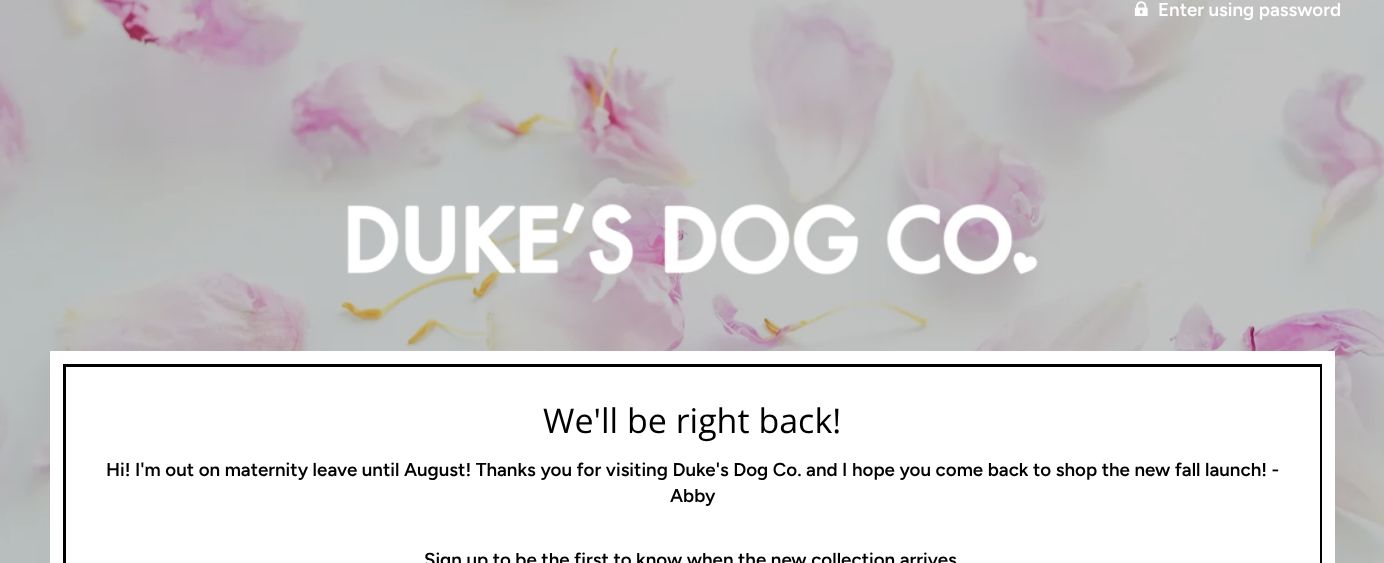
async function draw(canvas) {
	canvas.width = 1384;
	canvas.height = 563;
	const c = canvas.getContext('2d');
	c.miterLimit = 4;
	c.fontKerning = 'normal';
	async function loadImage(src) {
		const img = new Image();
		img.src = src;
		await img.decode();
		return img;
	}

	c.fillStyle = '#fff';
	c.fillRect(0, 0, 1384, 563);
	c.drawImage(await loadImage('img1.png'), 0, 0, 1384, 563);
	c.drawImage(await loadImage('img2.png'), 1134, 1, 14, 15);
	c.font = '600 18.75px Figtree';
	c.fillText('Enter using password', 1158, 16);
	c.drawImage(await loadImage('img3.png'), 347, 202, 691, 73);
	c.beginPath();
	c.rect(64.5, 365.5, 1257, 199);
	c.fill();
	c.strokeStyle = '#000';
	c.lineWidth = 3;
	c.stroke();
	c.strokeStyle = '#fff';
	c.lineWidth = 13;
	c.strokeRect(56.5, 357.5, 1272, 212);
	c.font = '34px Open Sans';
	c.fillStyle = '#000';
	c.fillText('We\'ll be right back!', 543, 433);
	c.font = '600 18.75px Figtree';
	for (const [text, x, y] of [
		['Hi! I\'m out on maternity leave until August! Thanks you for visiting Duke\'s Dog Co. and I hope you come back to shop the new fall launch! -', 106, 476],
		['Abby', 670, 502],
		['Sign up to be the first to know when the new collection arrives', 424, 566],
	]) {
		c.fillText(text, x, y);
	}
}

draw(document.querySelector('canvas'));
